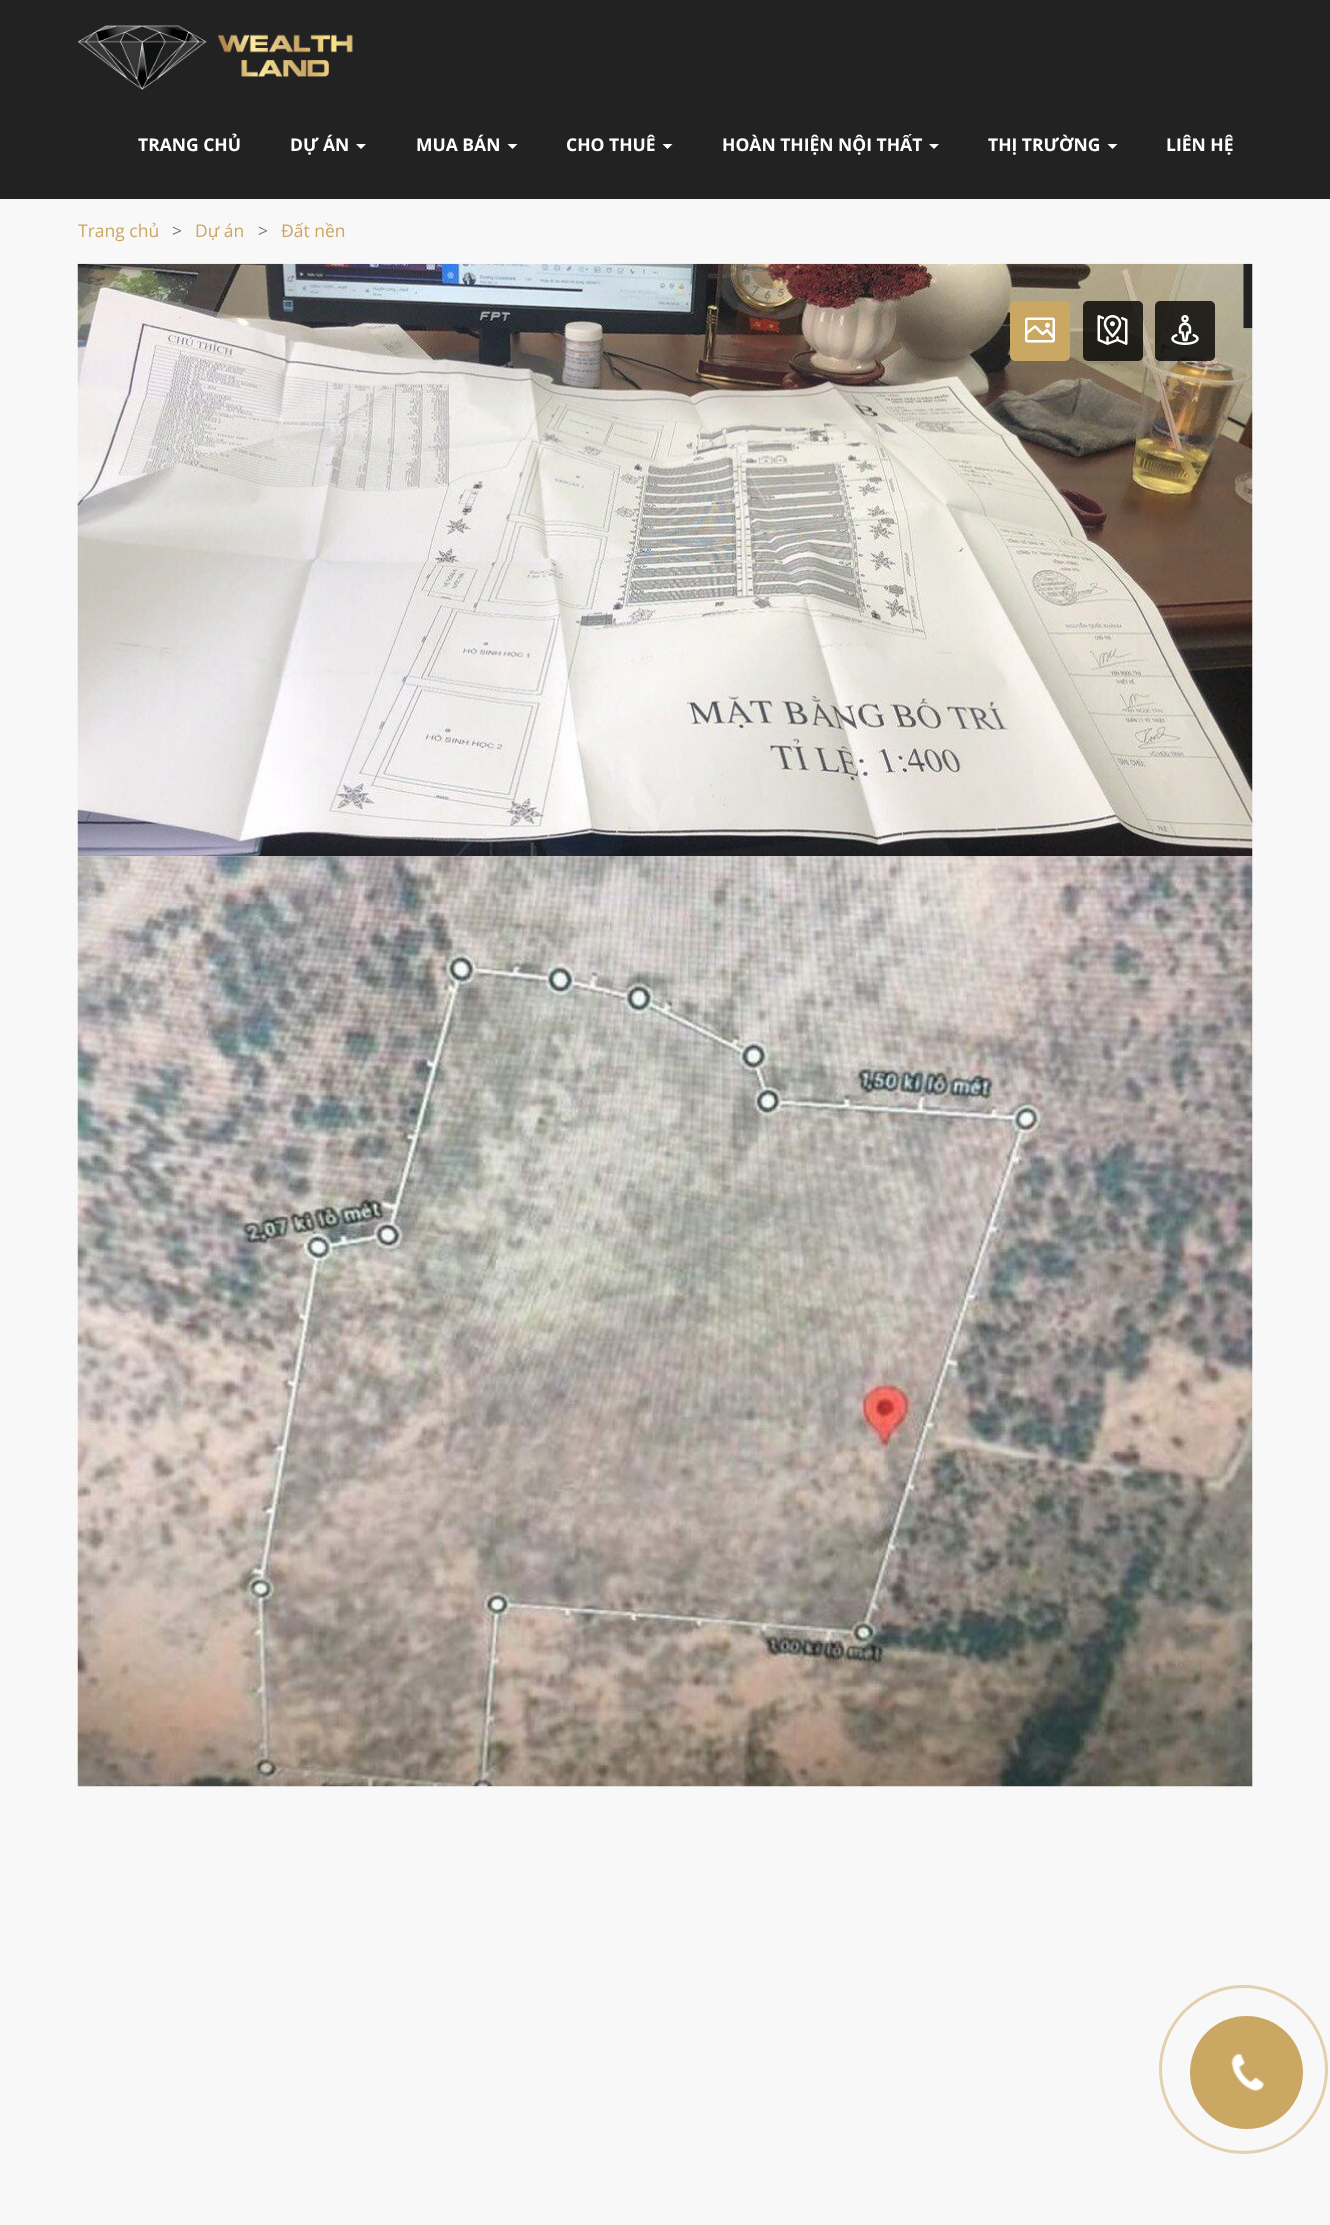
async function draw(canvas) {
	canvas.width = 1330;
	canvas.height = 2225;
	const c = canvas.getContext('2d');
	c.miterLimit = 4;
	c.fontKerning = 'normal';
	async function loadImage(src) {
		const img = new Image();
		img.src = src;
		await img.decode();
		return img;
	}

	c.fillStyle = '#f8f8f8';
	c.fillRect(0, 0, 1330, 2225);
	c.fillStyle = '#232222';
	c.fillRect(0, 0, 1330, 199);
	c.drawImage(await loadImage('img1.png'), 77, 25, 276, 65);
	c.font = 'bold 17.5px Open Sans';
	c.fillStyle = '#fff';
	c.fillText('TRANG CHỦ', 138, 151);
	c.fillText('DỰ ÁN', 290, 151);
	c.beginPath();
	c.moveTo(356, 144);
	c.lineTo(366, 144);
	c.lineTo(361, 149);
	c.closePath();
	c.fill();
	c.fillText('MUA BÁN', 416, 151);
	c.beginPath();
	c.moveTo(507.5, 144);
	c.lineTo(517.5, 144);
	c.lineTo(512.5, 149);
	c.closePath();
	c.fill();
	c.fillText('CHO THUÊ', 566, 151);
	c.beginPath();
	c.moveTo(662.5, 144);
	c.lineTo(672.5, 144);
	c.lineTo(667.5, 149);
	c.closePath();
	c.fill();
	c.fillText('HOÀN THIỆN NỘI THẤT', 722, 151);
	c.beginPath();
	c.moveTo(929, 144);
	c.lineTo(939, 144);
	c.lineTo(934, 149);
	c.closePath();
	c.fill();
	c.fillText('THỊ TRƯỜNG', 988, 151);
	c.beginPath();
	c.moveTo(1107.5, 144);
	c.lineTo(1117.5, 144);
	c.lineTo(1112.5, 149);
	c.closePath();
	c.fill();
	c.fillText('LIÊN HỆ', 1166, 151);
	c.font = '17.5px Open Sans';
	c.fillStyle = '#cba764';
	c.fillText('Trang chủ', 78, 237);
	c.fillStyle = '#797979';
	c.fillText('>', 172, 237);
	c.fillStyle = '#cba764';
	c.fillText('Dự án', 195, 237);
	c.fillStyle = '#797979';
	c.fillText('>', 258, 237);
	c.fillStyle = '#cba764';
	c.fillText('Đất nền', 281, 237);
	c.drawImage(await loadImage('img2.png'), 77, 263, 1176, 594);
	c.drawImage(await loadImage('img3.png'), 77, 856, 1176, 931);
	c.beginPath();
	c.roundRect(1010, 301, 60, 60, 5);
	c.fill();
	c.drawImage(await loadImage('img4.png'), 1025, 317, 30, 26);
	c.fillStyle = '#000000cc';
	c.beginPath();
	c.roundRect(1083, 301, 60, 60, 5);
	c.fill();
	c.drawImage(await loadImage('img5.png'), 1097, 315, 31, 30);
	c.beginPath();
	c.roundRect(1155, 301, 60, 60, 5);
	c.fill();
	c.drawImage(await loadImage('img6.png'), 1171, 315, 28, 30);
	c.beginPath();
	c.arc(1243.5, 2069.5, 83, 0, 2 * Math.PI);
	c.strokeStyle = '#e2d0ae';
	c.lineWidth = 3;
	c.stroke();
	c.fillStyle = '#cba764';
	c.beginPath();
	c.arc(1246.5, 2072.5, 56.5, 0, 2 * Math.PI);
	c.fill();
	c.drawImage(await loadImage('img7.png'), 1231, 2053, 33, 38);
}

draw(document.querySelector('canvas'));
